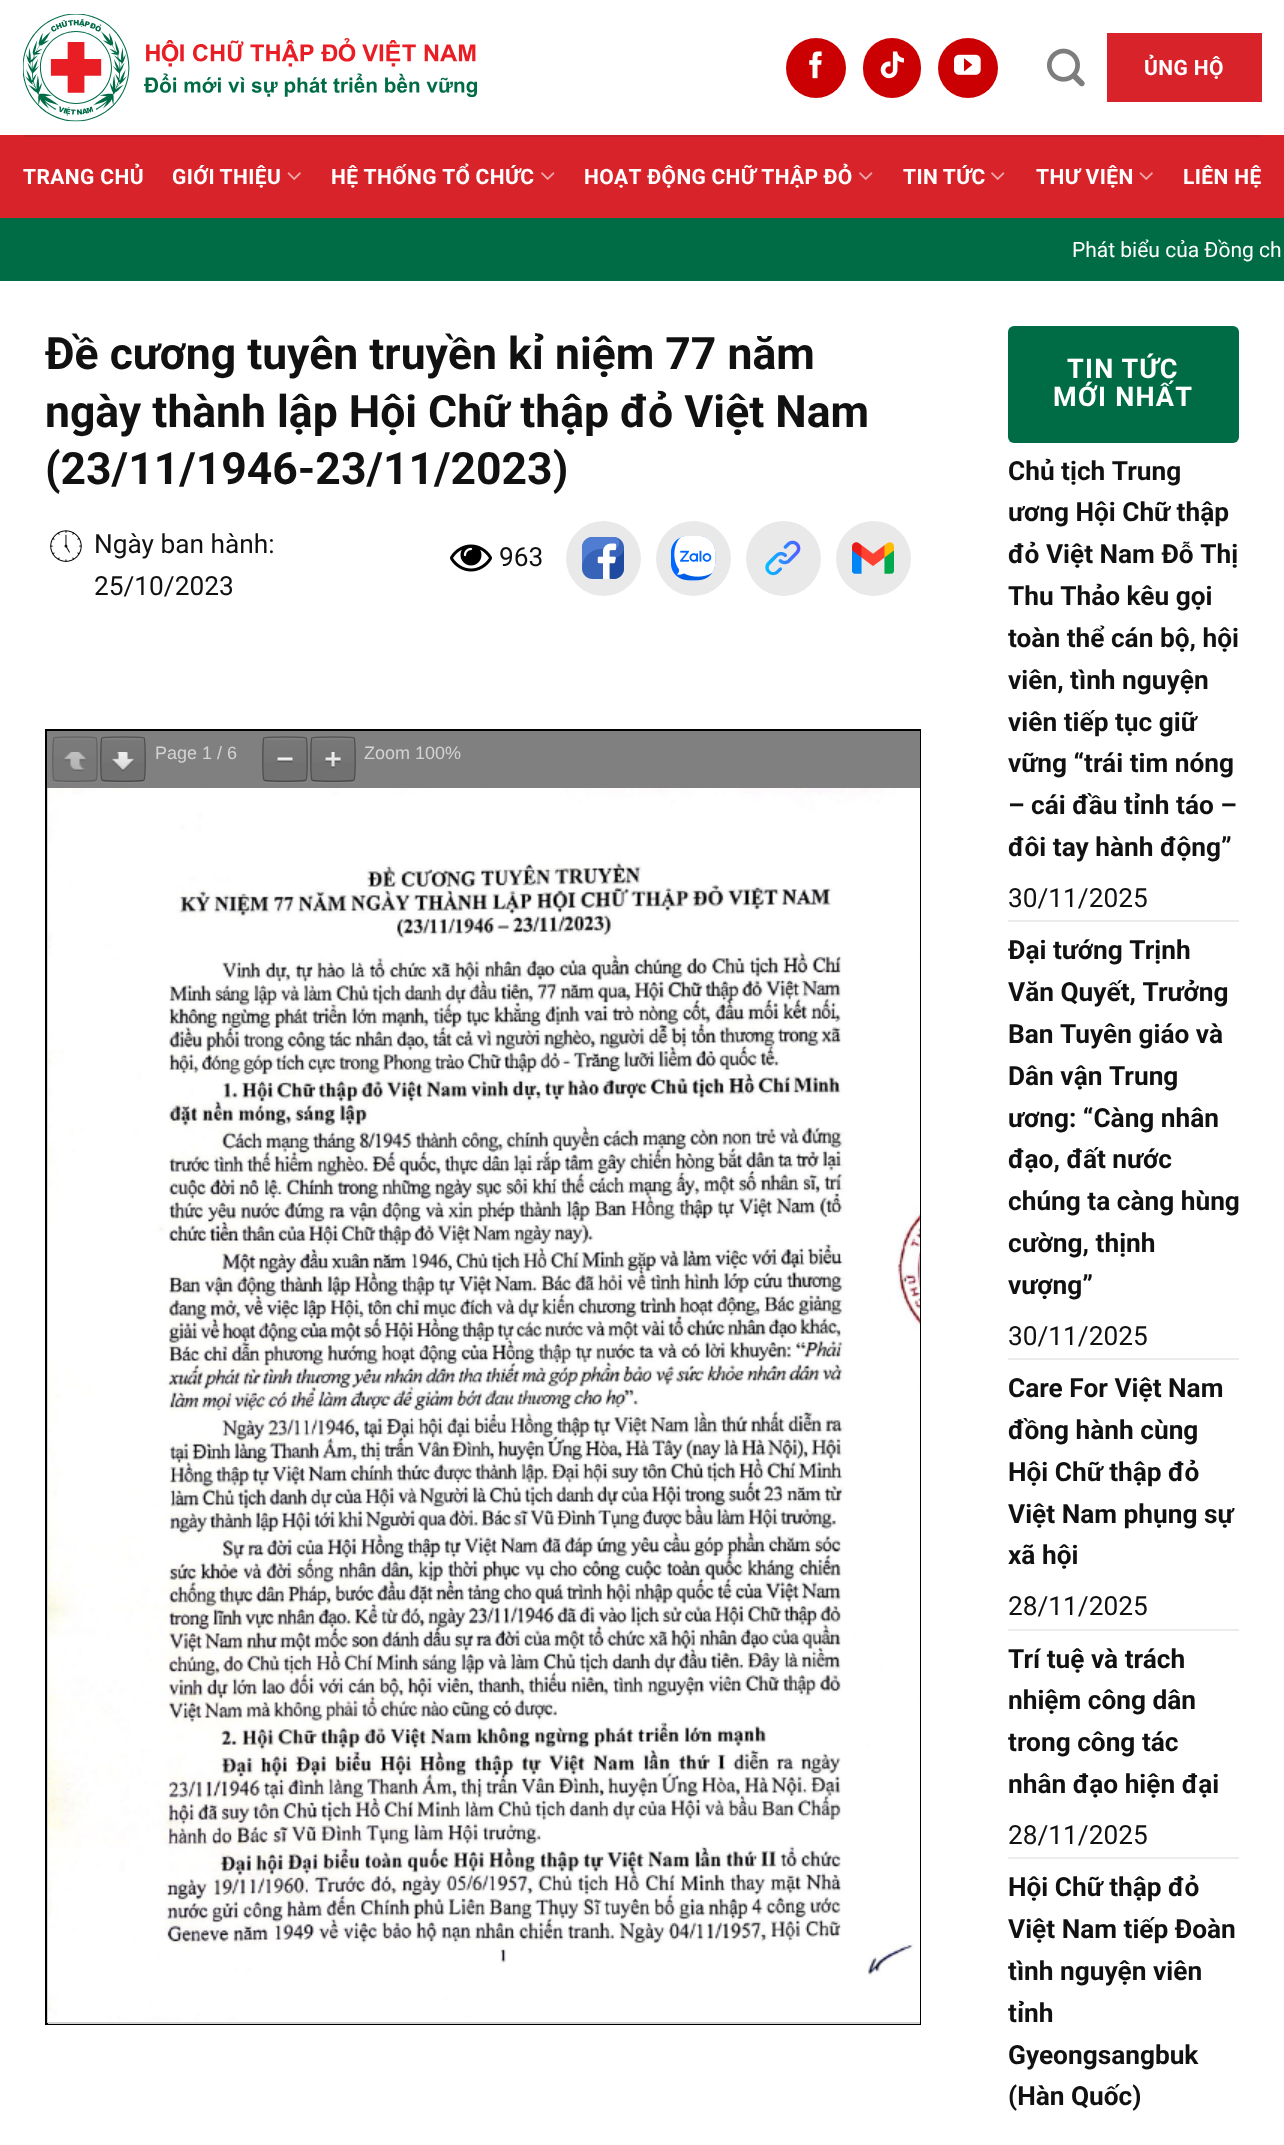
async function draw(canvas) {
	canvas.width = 1284;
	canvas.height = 2145;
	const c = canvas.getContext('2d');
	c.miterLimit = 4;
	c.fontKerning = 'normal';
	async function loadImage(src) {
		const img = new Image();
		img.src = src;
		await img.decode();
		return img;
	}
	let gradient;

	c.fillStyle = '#fff';
	c.fillRect(0, 0, 1284, 2145);
	c.drawImage(await loadImage('img1.png'), 23, 14, 454, 108);
	c.fillStyle = '#ca0002';
	c.beginPath();
	c.arc(816, 68, 30, 0, 2 * Math.PI);
	c.fill();
	c.drawImage(await loadImage('img2.png'), 809, 51, 13, 28);
	c.beginPath();
	c.roundRect(863, 38, 58, 60, 29);
	c.fill();
	c.drawImage(await loadImage('img3.png'), 880, 51, 24, 28);
	c.beginPath();
	c.arc(968, 68, 30, 0, 2 * Math.PI);
	c.fill();
	c.drawImage(await loadImage('img4.png'), 954, 54, 27, 21);
	c.drawImage(await loadImage('img5.png'), 1047, 48, 38, 39);
	c.fillStyle = '#d8232a';
	c.fillRect(1107, 33, 155, 69);
	c.letterSpacing = '0.4px';
	c.font = 'bold 21px Roboto';
	c.fillStyle = '#fff';
	c.fillText('ỦNG HỘ', 1144, 75);
	c.fillStyle = '#d8232a';
	c.fillRect(0, 135, 1284, 83);
	c.fillStyle = '#c42128';
	c.fillRect(23, 135, 1239, 2);
	c.fillStyle = '#fff';
	c.fillText('TRANG CHỦ', 23, 184);
	c.wordSpacing = '-1px';
	c.fillText('GIỚI THIỆU', 172, 184);
	c.drawImage(await loadImage('img6.png'), 287, 172, 14, 8);
	c.wordSpacing = '-0.5px';
	c.fillText('HỆ THỐNG TỔ CHỨC', 331, 184);
	c.drawImage(await loadImage('img7.png'), 541, 172, 14, 8);
	c.fillText('HOẠT ĐỘNG CHỮ THẬP ĐỎ', 584, 184);
	c.drawImage(await loadImage('img7.png'), 859, 172, 14, 8);
	c.wordSpacing = '-1px';
	c.fillText('TIN TỨC', 903, 184);
	c.drawImage(await loadImage('img7.png'), 991, 172, 14, 8);
	c.wordSpacing = '0px';
	c.fillText('THƯ VIỆN', 1036, 184);
	c.drawImage(await loadImage('img6.png'), 1139, 172, 14, 8);
	c.fillText('LIÊN HỆ', 1183, 184);
	c.fillStyle = '#006c45';
	c.fillRect(0, 218, 1284, 63);
	c.letterSpacing = '0px';
	c.font = '21px Roboto';
	c.fillStyle = '#fff';
	c.fillText('Phát biểu của Đồng ch', 1072, 257);
	c.font = 'bold 44.5px Roboto';
	c.fillStyle = '#111';
	for (const [text, x, y] of [
		['Đề cương tuyên truyền kỉ niệm 77 năm', 45, 369],
		['ngày thành lập Hội Chữ thập đỏ Việt Nam', 45, 427],
		['(23/11/1946-23/11/2023)', 45, 484],
	]) {
		c.fillText(text, x, y);
	}
	c.drawImage(await loadImage('img8.png'), 50, 530, 32, 32);
	c.font = '26.25px Roboto';
	c.fillText('Ngày ban hành:', 94, 553);
	c.fillText('25/10/2023', 94, 595);
	c.drawImage(await loadImage('img9.png'), 450, 544, 42, 28);
	c.fillText('963', 499, 566);
	c.fillStyle = '#e9e9e9';
	c.beginPath();
	c.arc(603.5, 558.5, 37.5, 0, 2 * Math.PI);
	c.fill();
	c.drawImage(await loadImage('img10.png'), 582, 537, 42, 42);
	c.beginPath();
	c.arc(693.5, 558.5, 37.5, 0, 2 * Math.PI);
	c.fill();
	c.drawImage(await loadImage('img11.png'), 671, 536, 45, 45);
	c.beginPath();
	c.arc(783.5, 558.5, 37.5, 0, 2 * Math.PI);
	c.fill();
	c.drawImage(await loadImage('img12.png'), 765, 540, 36, 36);
	c.beginPath();
	c.arc(873.5, 558.5, 37.5, 0, 2 * Math.PI);
	c.fill();
	c.drawImage(await loadImage('img13.png'), 852, 542, 42, 32);
	c.fillStyle = '#d3d3d3';
	c.fillRect(47, 788, 1, 1235);
	c.strokeStyle = '#000';
	c.lineWidth = 2;
	c.strokeRect(46, 730, 874, 1294);
	c.fillStyle = '#808080';
	c.fillRect(47, 731, 873, 57);
	c.fillStyle = '#848484';
	c.beginPath();
	c.moveTo(53, 780);
	c.bezierCurveTo(53, 782, 54, 783, 56, 783);
	c.lineTo(95, 783);
	c.bezierCurveTo(97, 783, 98, 782, 98, 780);
	c.lineTo(98, 741);
	c.lineTo(97, 739);
	c.lineTo(98, 772);
	c.bezierCurveTo(98, 785, 96, 782, 82, 782);
	c.lineTo(62, 782);
	c.bezierCurveTo(60, 782, 55, 783, 53, 780);
	c.closePath();
	c.fill();
	c.fillStyle = '#777';
	c.beginPath();
	c.roundRect(54, 738, 42, 42, 1.5);
	c.fill();
	gradient = c.createLinearGradient(75, 738, 75, 780);
	gradient.addColorStop(0, '#cccccc0d');
	gradient.addColorStop(1, '#cccccc00');
	c.fillStyle = gradient;
	c.fillRect(54, 738, 42, 19);
	c.fillStyle = '#7f7f7f';
	c.beginPath();
	c.moveTo(56, 740);
	c.lineTo(94, 740);
	c.bezierCurveTo(95, 740, 96, 740, 96, 741);
	c.bezierCurveTo(96, 736, 93, 738, 88, 738);
	c.lineTo(62, 738);
	c.bezierCurveTo(57, 738, 54, 736, 54, 741);
	c.bezierCurveTo(54, 740, 55, 740, 56, 740);
	c.closePath();
	c.fill();
	c.beginPath();
	c.moveTo(54, 738);
	c.bezierCurveTo(55, 736.5, 95, 736.5, 96, 738);
	c.strokeStyle = '#676767';
	c.lineWidth = 1.5;
	c.stroke();
	c.beginPath();
	c.moveTo(96, 738);
	c.bezierCurveTo(97.5, 739, 97.5, 779, 96, 780);
	c.strokeStyle = '#33333361';
	c.stroke();
	c.beginPath();
	c.moveTo(96, 780);
	c.bezierCurveTo(95, 781.5, 55, 781.5, 54, 780);
	c.strokeStyle = '#606060';
	c.stroke();
	c.beginPath();
	c.moveTo(54, 780);
	c.bezierCurveTo(52.5, 779, 52.5, 739, 54, 738);
	c.strokeStyle = '#636363';
	c.stroke();
	c.drawImage(await loadImage('img14.png'), 64, 752, 22, 19);
	c.fillStyle = '#868686';
	c.beginPath();
	c.moveTo(101, 780);
	c.bezierCurveTo(101, 782, 102, 783, 104, 783);
	c.lineTo(143, 783);
	c.bezierCurveTo(145, 783, 146, 782, 146, 780);
	c.lineTo(146, 741);
	c.lineTo(145, 739);
	c.lineTo(146, 772);
	c.bezierCurveTo(146, 785, 144, 782, 130, 782);
	c.lineTo(110, 782);
	c.bezierCurveTo(108, 782, 103, 783, 101, 780);
	c.closePath();
	c.fill();
	c.fillStyle = '#717171';
	c.beginPath();
	c.roundRect(102, 738, 42, 42, 1.5);
	c.fill();
	gradient = c.createLinearGradient(123, 738, 123, 780);
	gradient.addColorStop(0, '#ffffff0d');
	gradient.addColorStop(1, '#ffffff00');
	c.fillStyle = gradient;
	c.fillRect(102, 738, 42, 24);
	c.fillStyle = '#7f7f7f';
	c.beginPath();
	c.moveTo(104, 740);
	c.lineTo(142, 740);
	c.bezierCurveTo(143, 740, 144, 740, 144, 741);
	c.bezierCurveTo(144, 736, 141, 738, 136, 738);
	c.lineTo(110, 738);
	c.bezierCurveTo(105, 738, 102, 736, 102, 741);
	c.bezierCurveTo(102, 740, 103, 740, 104, 740);
	c.closePath();
	c.fill();
	c.beginPath();
	c.moveTo(102, 738);
	c.bezierCurveTo(103, 736.5, 143, 736.5, 144, 738);
	c.strokeStyle = '#575757';
	c.stroke();
	c.beginPath();
	c.moveTo(144, 738);
	c.bezierCurveTo(145.5, 739, 145.5, 779, 144, 780);
	c.strokeStyle = '#00000061';
	c.stroke();
	c.beginPath();
	c.moveTo(144, 780);
	c.bezierCurveTo(143, 781.5, 103, 781.5, 102, 780);
	c.strokeStyle = '#4a4a4a';
	c.stroke();
	c.beginPath();
	c.moveTo(102, 780);
	c.bezierCurveTo(100.5, 779, 100.5, 739, 102, 738);
	c.strokeStyle = '#4f4f4f';
	c.stroke();
	c.drawImage(await loadImage('img15.png'), 112, 752, 22, 19);
	c.font = '18px Liberation Sans';
	c.fillStyle = '#d3d3d3';
	c.fillText('Page 1 / 6', 155, 759);
	c.fillStyle = '#868686';
	c.beginPath();
	c.moveTo(263, 780);
	c.bezierCurveTo(263, 782, 264, 783, 266, 783);
	c.lineTo(305, 783);
	c.bezierCurveTo(307, 783, 308, 782, 308, 780);
	c.lineTo(308, 741);
	c.lineTo(307, 739);
	c.lineTo(308, 772);
	c.bezierCurveTo(308, 785, 306, 782, 292, 782);
	c.lineTo(272, 782);
	c.bezierCurveTo(270, 782, 265, 783, 263, 780);
	c.closePath();
	c.fill();
	c.fillStyle = '#717171';
	c.beginPath();
	c.roundRect(264, 738, 42, 42, 1.5);
	c.fill();
	gradient = c.createLinearGradient(285, 738, 285, 780);
	gradient.addColorStop(0, '#ffffff0d');
	gradient.addColorStop(1, '#ffffff00');
	c.fillStyle = gradient;
	c.fillRect(264, 738, 42, 24);
	c.fillStyle = '#7f7f7f';
	c.beginPath();
	c.moveTo(266, 740);
	c.lineTo(304, 740);
	c.bezierCurveTo(305, 740, 306, 740, 306, 741);
	c.bezierCurveTo(306, 736, 303, 738, 298, 738);
	c.lineTo(272, 738);
	c.bezierCurveTo(267, 738, 264, 736, 264, 741);
	c.bezierCurveTo(264, 740, 265, 740, 266, 740);
	c.closePath();
	c.fill();
	c.beginPath();
	c.moveTo(264, 738);
	c.bezierCurveTo(265, 736.5, 305, 736.5, 306, 738);
	c.strokeStyle = '#575757';
	c.stroke();
	c.beginPath();
	c.moveTo(306, 738);
	c.bezierCurveTo(307.5, 739, 307.5, 779, 306, 780);
	c.strokeStyle = '#00000061';
	c.stroke();
	c.beginPath();
	c.moveTo(306, 780);
	c.bezierCurveTo(305, 781.5, 265, 781.5, 264, 780);
	c.strokeStyle = '#4a4a4a';
	c.stroke();
	c.beginPath();
	c.moveTo(264, 780);
	c.bezierCurveTo(262.5, 779, 262.5, 739, 264, 738);
	c.strokeStyle = '#4f4f4f';
	c.stroke();
	c.drawImage(await loadImage('img16.png'), 277, 757, 16, 6);
	c.fillStyle = '#868686';
	c.beginPath();
	c.moveTo(311, 780);
	c.bezierCurveTo(311, 782, 312, 783, 314, 783);
	c.lineTo(353, 783);
	c.bezierCurveTo(355, 783, 356, 782, 356, 780);
	c.lineTo(356, 741);
	c.lineTo(355, 739);
	c.lineTo(356, 772);
	c.bezierCurveTo(356, 785, 354, 782, 340, 782);
	c.lineTo(320, 782);
	c.bezierCurveTo(318, 782, 313, 783, 311, 780);
	c.closePath();
	c.fill();
	c.fillStyle = '#717171';
	c.beginPath();
	c.roundRect(312, 738, 42, 42, 1.5);
	c.fill();
	gradient = c.createLinearGradient(333, 738, 333, 780);
	gradient.addColorStop(0, '#ffffff0d');
	gradient.addColorStop(1, '#ffffff00');
	c.fillStyle = gradient;
	c.fillRect(312, 738, 42, 24);
	c.fillStyle = '#7f7f7f';
	c.beginPath();
	c.moveTo(314, 740);
	c.lineTo(352, 740);
	c.bezierCurveTo(353, 740, 354, 740, 354, 741);
	c.bezierCurveTo(354, 736, 351, 738, 346, 738);
	c.lineTo(320, 738);
	c.bezierCurveTo(315, 738, 312, 736, 312, 741);
	c.bezierCurveTo(312, 740, 313, 740, 314, 740);
	c.closePath();
	c.fill();
	c.beginPath();
	c.moveTo(312, 738);
	c.bezierCurveTo(313, 736.5, 353, 736.5, 354, 738);
	c.strokeStyle = '#575757';
	c.stroke();
	c.beginPath();
	c.moveTo(354, 738);
	c.bezierCurveTo(355.5, 739, 355.5, 779, 354, 780);
	c.strokeStyle = '#00000061';
	c.stroke();
	c.beginPath();
	c.moveTo(354, 780);
	c.bezierCurveTo(353, 781.5, 313, 781.5, 312, 780);
	c.strokeStyle = '#4a4a4a';
	c.stroke();
	c.beginPath();
	c.moveTo(312, 780);
	c.bezierCurveTo(310.5, 779, 310.5, 739, 312, 738);
	c.strokeStyle = '#4f4f4f';
	c.stroke();
	c.drawImage(await loadImage('img17.png'), 325, 752, 16, 17);
	c.fillStyle = '#d3d3d3';
	c.fillText('Zoom 100%', 364, 759);
	c.fillRect(48, 2022, 872, 2);
	c.drawImage(await loadImage('img18.png'), 48, 788, 872, 1234);
	c.fillStyle = '#006c45';
	c.beginPath();
	c.roundRect(1008, 326, 231, 117, 6);
	c.fill();
	c.letterSpacing = '1.25px';
	c.wordSpacing = '-1px';
	c.font = 'bold 27px Roboto';
	c.fillStyle = '#fff';
	c.fillText('TIN TỨC', 1067, 378);
	c.wordSpacing = '0px';
	c.fillText('MỚI NHẤT', 1053, 406);
	c.letterSpacing = '0px';
	c.font = 'bold 26.25px Roboto';
	c.fillStyle = '#111';
	for (const [text, x, y] of [
		['Chủ tịch Trung', 1008, 480],
		['ương Hội Chữ thập', 1008, 521],
		['đỏ Việt Nam Đỗ Thị', 1008, 563],
		['Thu Thảo kêu gọi', 1008, 605],
		['toàn thể cán bộ, hội', 1008, 647],
		['viên, tình nguyện', 1008, 689],
		['viên tiếp tục giữ', 1008, 731],
		['vững “trái tim nóng', 1008, 772],
		['– cái đầu tỉnh táo –', 1008, 814],
		['đôi tay hành động”', 1008, 856],
	]) {
		c.fillText(text, x, y);
	}
	c.font = '26.25px Roboto';
	c.fillText('30/11/2025', 1008, 907);
	c.fillStyle = '#ececec';
	c.fillRect(1008, 920, 231, 2);
	c.font = 'bold 26.25px Roboto';
	c.fillStyle = '#111';
	for (const [text, x, y] of [
		['Đại tướng Trịnh', 1008, 959],
		['Văn Quyết, Trưởng', 1008, 1001],
		['Ban Tuyên giáo và', 1008, 1043],
		['Dân vận Trung', 1008, 1085],
		['ương: “Càng nhân', 1008, 1127],
		['đạo, đất nước', 1008, 1168],
		['chúng ta càng hùng', 1008, 1210],
		['cường, thịnh', 1008, 1252],
		['vượng”', 1008, 1294],
	]) {
		c.fillText(text, x, y);
	}
	c.font = '26.25px Roboto';
	c.fillText('30/11/2025', 1008, 1345);
	c.fillStyle = '#ececec';
	c.fillRect(1008, 1358, 231, 2);
	c.font = 'bold 26.25px Roboto';
	c.fillStyle = '#111';
	for (const [text, x, y] of [
		['Care For Việt Nam', 1008, 1397],
		['đồng hành cùng', 1008, 1439],
		['Hội Chữ thập đỏ', 1008, 1481],
		['Việt Nam phụng sự', 1008, 1523],
		['xã hội', 1008, 1564],
	]) {
		c.fillText(text, x, y);
	}
	c.font = '26.25px Roboto';
	c.fillText('28/11/2025', 1008, 1615);
	c.fillStyle = '#ececec';
	c.fillRect(1008, 1629, 231, 2);
	c.font = 'bold 26.25px Roboto';
	c.fillStyle = '#111';
	for (const [text, x, y] of [
		['Trí tuệ và trách', 1008, 1668],
		['nhiệm công dân', 1008, 1709],
		['trong công tác', 1008, 1751],
		['nhân đạo hiện đại', 1008, 1793],
	]) {
		c.fillText(text, x, y);
	}
	c.font = '26.25px Roboto';
	c.fillText('28/11/2025', 1008, 1844);
	c.fillStyle = '#ececec';
	c.fillRect(1008, 1857, 231, 2);
	c.font = 'bold 26.25px Roboto';
	c.fillStyle = '#111';
	for (const [text, x, y] of [
		['Hội Chữ thập đỏ', 1008, 1896],
		['Việt Nam tiếp Đoàn', 1008, 1938],
		['tình nguyện viên', 1008, 1980],
		['tỉnh', 1008, 2022],
		['Gyeongsangbuk', 1008, 2064],
		['(Hàn Quốc)', 1008, 2105],
	]) {
		c.fillText(text, x, y);
	}
}

draw(document.querySelector('canvas'));
